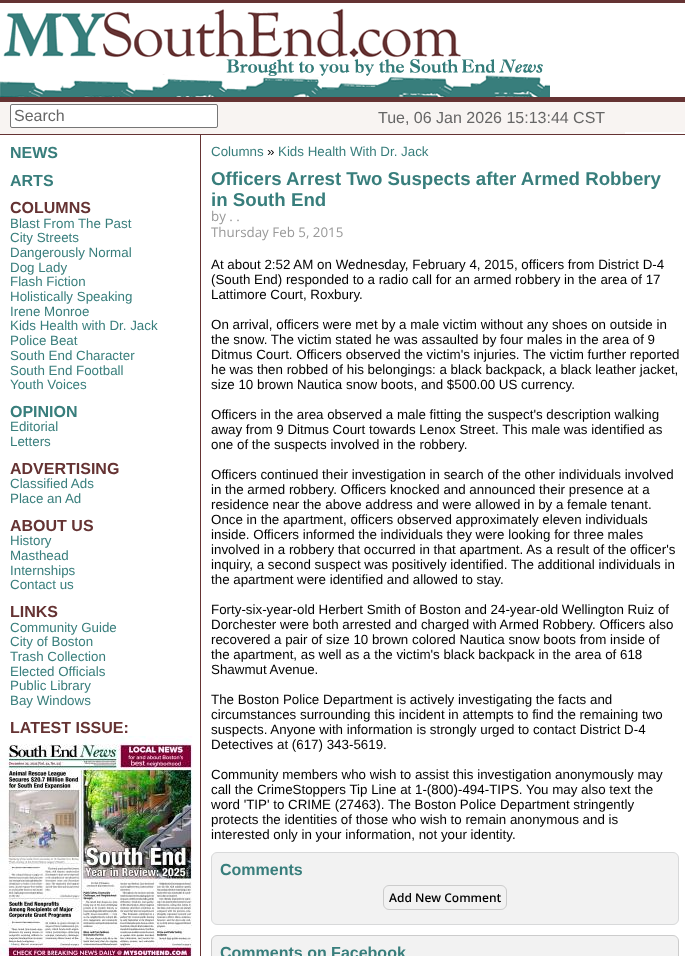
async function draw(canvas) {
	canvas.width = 685;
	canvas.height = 956;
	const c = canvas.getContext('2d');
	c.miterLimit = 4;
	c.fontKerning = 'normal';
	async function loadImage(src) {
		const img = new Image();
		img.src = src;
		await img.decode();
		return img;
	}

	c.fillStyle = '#fff';
	c.fillRect(0, 0, 685, 956);
	c.fillStyle = '#653333';
	c.fillRect(0, 0, 685, 3);
	c.drawImage(await loadImage('img1.png'), 0, 8, 550, 89);
	for (const [x, y, w, h, color] of [
		[0, 97, 685, 5, '#653333'],
		[625, 102, 60, 30, '#f8f4f2'],
		[0, 102, 625, 32, '#f8f4f2'],
	]) {
		c.fillStyle = color;
		c.fillRect(x, y, w, h);
	}
	c.fillStyle = '#fff';
	c.beginPath();
	c.roundRect(10.5, 104.5, 207, 23, 1.5);
	c.fill();
	c.strokeStyle = '#767676';
	c.stroke();
	c.font = '16px Liberation Sans';
	c.fillStyle = '#666';
	c.fillText('Search', 14, 121);
	c.fillText('Tue, 06 Jan 2026 15:13:44 CST', 378, 123);
	c.fillStyle = '#653333';
	c.fillRect(200, 134, 1, 822);
	c.fillRect(0, 134, 685, 1);
	c.font = 'bold 16px Liberation Sans';
	c.fillStyle = '#387e7c';
	c.fillText('NEWS', 10, 158);
	c.fillText('ARTS', 10, 186);
	c.fillStyle = '#653333';
	c.fillText('COLUMNS', 10, 213);
	c.font = '13.35px Liberation Sans';
	c.fillStyle = '#387e7c';
	for (const [text, x, y] of [
		['Blast From The Past', 10, 228],
		['City Streets', 10, 242],
		['Dangerously Normal', 10, 257],
		['Dog Lady', 10, 272],
		['Flash Fiction', 10, 286],
		['Holistically Speaking', 10, 301],
		['Irene Monroe', 10, 316],
		['Kids Health with Dr. Jack', 10, 330],
		['Police Beat', 10, 345],
		['South End Character', 10, 360],
		['South End Football', 10, 375],
		['Youth Voices', 10, 389],
	]) {
		c.fillText(text, x, y);
	}
	c.font = 'bold 16px Liberation Sans';
	c.fillText('OPINION', 10, 417);
	c.font = '13.35px Liberation Sans';
	c.fillText('Editorial', 10, 431);
	c.fillText('Letters', 10, 446);
	c.font = 'bold 16px Liberation Sans';
	c.fillStyle = '#653333';
	c.fillText('ADVERTISING', 10, 474);
	c.font = '13.35px Liberation Sans';
	c.fillStyle = '#387e7c';
	c.fillText('Classified Ads', 10, 488);
	c.fillText('Place an Ad', 10, 503);
	c.font = 'bold 16px Liberation Sans';
	c.fillStyle = '#653333';
	c.fillText('ABOUT US', 10, 531);
	c.font = '13.35px Liberation Sans';
	c.fillStyle = '#387e7c';
	for (const [text, x, y] of [
		['History', 10, 545],
		['Masthead', 10, 560],
		['Internships', 10, 575],
		['Contact us', 10, 589],
	]) {
		c.fillText(text, x, y);
	}
	c.font = 'bold 16px Liberation Sans';
	c.fillStyle = '#653333';
	c.fillText('LINKS', 10, 617);
	c.font = '13.35px Liberation Sans';
	c.fillStyle = '#387e7c';
	for (const [text, x, y] of [
		['Community Guide', 10, 632],
		['City of Boston', 10, 646],
		['Trash Collection', 10, 661],
		['Elected Officials', 10, 676],
		['Public Library', 10, 690],
		['Bay Windows', 10, 705],
	]) {
		c.fillText(text, x, y);
	}
	c.font = 'bold 16px Liberation Sans';
	c.fillStyle = '#653333';
	c.fillText('LATEST ISSUE:', 10, 733);
	c.drawImage(await loadImage('img2.png'), 0, 736, 193, 220);
	c.font = '13.35px Liberation Sans';
	c.fillStyle = '#387e7c';
	c.fillText('Columns', 211, 156);
	c.fillStyle = '#000';
	c.fillText('»', 267, 156);
	c.fillStyle = '#387e7c';
	c.fillText('Kids Health With Dr. Jack', 278, 156);
	c.font = 'bold 18.7px Liberation Sans';
	c.fillText('Officers Arrest Two Suspects after Armed Robbery', 211, 185);
	c.fillText('in South End', 211, 206);
	c.font = '13.35px Open Sans';
	c.fillStyle = '#999';
	c.fillText('by . .', 211, 221);
	c.fillText('Thursday Feb 5, 2015', 211, 237);
	c.font = '13.35px Liberation Sans';
	c.fillStyle = '#000';
	for (const [text, x, y] of [
		['At about 2:52 AM on Wednesday, February 4, 2015, officers from District D-4', 211, 269],
		['(South End) responded to a radio call for an armed robbery in the area of 17', 211, 284],
		['Lattimore Court, Roxbury.', 211, 299],
		['On arrival, officers were met by a male victim without any shoes on outside in', 211, 329],
		['the snow. The victim stated he was assaulted by four males in the area of 9', 211, 344],
		['Ditmus Court. Officers observed the victim\'s injuries. The victim further reported', 211, 359],
		['he was then robbed of his belongings: a black backpack, a black leather jacket,', 211, 374],
		['size 10 brown Nautica snow boots, and $500.00 US currency.', 211, 389],
		['Officers in the area observed a male fitting the suspect\'s description walking', 211, 419],
		['away from 9 Ditmus Court towards Lenox Street. This male was identified as', 211, 434],
		['one of the suspects involved in the robbery.', 211, 449],
		['Officers continued their investigation in search of the other individuals involved', 211, 479],
		['in the armed robbery. Officers knocked and announced their presence at a', 211, 494],
		['residence near the above address and were allowed in by a female tenant.', 211, 509],
		['Once in the apartment, officers observed approximately eleven individuals', 211, 524],
		['inside. Officers informed the individuals they were looking for three males', 211, 539],
		['involved in a robbery that occurred in that apartment. As a result of the officer\'s', 211, 554],
		['inquiry, a second suspect was positively identified. The additional individuals in', 211, 569],
		['the apartment were identified and allowed to stay.', 211, 584],
		['Forty-six-year-old Herbert Smith of Boston and 24-year-old Wellington Ruiz of', 211, 614],
		['Dorchester were both arrested and charged with Armed Robbery. Officers also', 211, 629],
		['recovered a pair of size 10 brown colored Nautica snow boots from inside of', 211, 644],
		['the apartment, as well as a the victim\'s black backpack in the area of 618', 211, 659],
		['Shawmut Avenue.', 211, 674],
		['The Boston Police Department is actively investigating the facts and', 211, 704],
		['circumstances surrounding this incident in attempts to find the remaining two', 211, 719],
		['suspects. Anyone with information is strongly urged to contact District D-4', 211, 734],
		['Detectives at (617) 343-5619.', 211, 749],
		['Community members who wish to assist this investigation anonymously may', 211, 779],
		['call the CrimeStoppers Tip Line at 1-(800)-494-TIPS. You may also text the', 211, 794],
		['word \'TIP\' to CRIME (27463). The Boston Police Department stringently', 211, 809],
		['protects the identities of those who wish to remain anonymous and is', 211, 824],
		['interested only in your information, not your identity.', 211, 839],
	]) {
		c.fillText(text, x, y);
	}
	c.fillStyle = '#f2f2f2';
	c.beginPath();
	c.roundRect(211.5, 852.5, 467, 72, 5.5);
	c.fill();
	c.strokeStyle = '#d8d9da';
	c.stroke();
	c.font = 'bold 16px Liberation Sans';
	c.fillStyle = '#387e7c';
	c.fillText('Comments', 220, 875);
	c.beginPath();
	c.roundRect(383.5, 885.5, 123, 24, 5.5);
	c.strokeStyle = '#ccc';
	c.stroke();
	c.font = '600 12px Open Sans';
	c.fillStyle = '#000';
	c.fillText('Add New Comment', 389, 902);
	c.fillStyle = '#f2f2f2';
	c.beginPath();
	c.roundRect(211.5, 935.5, 467, 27, 5.5);
	c.fill();
	c.stroke();
	c.font = 'bold 16px Liberation Sans';
	c.fillStyle = '#387e7c';
	c.fillText('Comments on Facebook', 220, 958);
}

draw(document.querySelector('canvas'));
